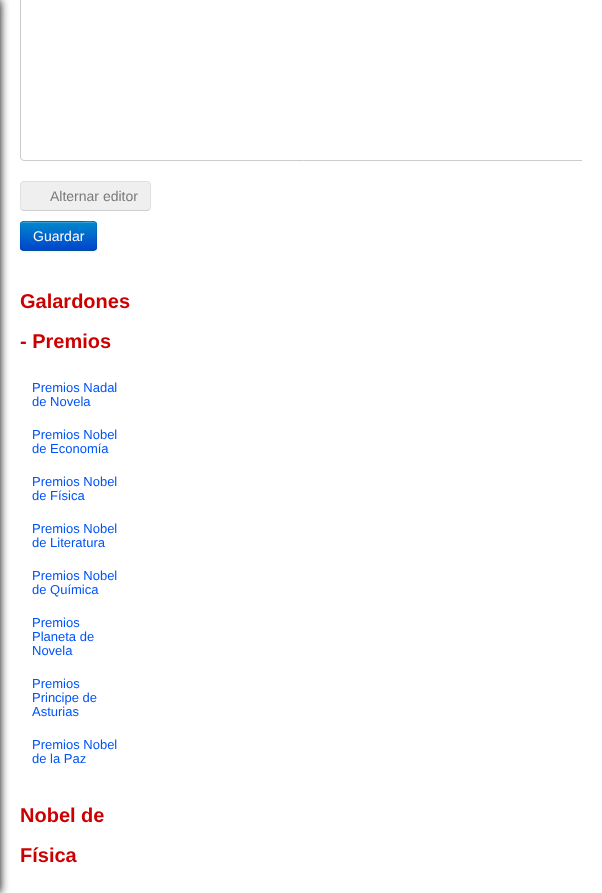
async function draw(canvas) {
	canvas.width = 602;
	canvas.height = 893;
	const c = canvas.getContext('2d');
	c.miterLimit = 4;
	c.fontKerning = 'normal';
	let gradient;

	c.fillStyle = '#fff';
	c.fillRect(0, 0, 602, 893);
	c.fillStyle = '#000';
	c.filter = 'blur(5px)';
	c.beginPath();
	c.rect(-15, 0, 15, 893);
	c.fill();
	c.filter = 'none';
	c.save();
	c.beginPath();
	c.rect(20, 0, 562, 271);
	c.clip();
	c.beginPath();
	c.roundRect(20.5, -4.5, 575, 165, 3.5);
	c.strokeStyle = '#ccc';
	c.stroke();
	c.restore();
	c.fillStyle = '#efefef';
	c.beginPath();
	c.roundRect(20, 181, 131, 30, 4);
	c.fill();
	c.beginPath();
	c.moveTo(149.5, 209.5);
	c.bezierCurveTo(149, 210, 148, 210.5, 147, 210.5);
	c.lineTo(24, 210.5);
	c.bezierCurveTo(23, 210.5, 22, 210, 21.5, 209.5);
	c.strokeStyle = '#cecece';
	c.stroke();
	c.beginPath();
	c.moveTo(21.5, 209.5);
	c.bezierCurveTo(19.5, 207.5, 20.5, 199, 20.5, 196);
	c.lineTo(20.5, 188.5);
	c.bezierCurveTo(20.5, 186, 20, 181.5, 24, 181.5);
	c.lineTo(147, 181.5);
	c.bezierCurveTo(151, 181.5, 150.5, 186, 150.5, 188.5);
	c.lineTo(150.5, 196);
	c.bezierCurveTo(150.5, 199, 151.5, 207.5, 149.5, 209.5);
	c.strokeStyle = '#5959591a';
	c.stroke();
	c.font = '14px Liberation Sans';
	c.fillStyle = '#7a7a7a';
	c.fillText('Alternar editor', 50, 201);
	c.fillStyle = '#0000000d';
	c.filter = 'blur(1px)';
	c.beginPath();
	c.roundRect(20, 222, 77, 30, 4);
	c.fill();
	c.filter = 'none';
	c.fillStyle = '#006dcc';
	c.beginPath();
	c.roundRect(20, 221, 77, 30, 4);
	c.fill();
	c.save();
	c.beginPath();
	c.roundRect(20, 221, 77, 30, 4);
	c.clip();
	gradient = c.createLinearGradient(59, 222, 59, 250);
	gradient.addColorStop(0, '#08c');
	gradient.addColorStop(1, '#04c');
	c.fillStyle = gradient;
	c.fillRect(20, 222, 77, 28);
	c.restore();
	c.fillStyle = '#ffffff33';
	c.beginPath();
	c.moveTo(24, 223);
	c.lineTo(93, 223);
	c.bezierCurveTo(95, 223, 96, 224, 96, 226);
	c.bezierCurveTo(96, 219, 86, 222, 82, 222);
	c.lineTo(36, 222);
	c.bezierCurveTo(31, 222, 21, 219, 21, 226);
	c.bezierCurveTo(21, 224, 22, 223, 24, 223);
	c.closePath();
	c.fill();
	c.beginPath();
	c.moveTo(95.5, 249.5);
	c.lineTo(93.5, 250.5);
	c.lineTo(23.5, 250.5);
	c.lineTo(21.5, 249.5);
	c.strokeStyle = '#00000040';
	c.stroke();
	c.beginPath();
	c.moveTo(21.5, 249.5);
	c.bezierCurveTo(19.5, 247.5, 20.5, 239, 20.5, 236);
	c.bezierCurveTo(20.5, 219.5, 18, 221.5, 35.5, 221.5);
	c.lineTo(81.5, 221.5);
	c.bezierCurveTo(99, 221.5, 96.5, 219.5, 96.5, 236);
	c.bezierCurveTo(96.5, 239, 97.5, 247.5, 95.5, 249.5);
	c.strokeStyle = '#0000001a';
	c.stroke();
	c.fillStyle = '#fff';
	c.fillText('Guardar', 33, 241);
	c.font = 'bold 20px Liberation Sans';
	c.fillStyle = '#c00';
	c.fillText('Galardones', 20, 308);
	c.fillText('- Premios', 20, 348);
	c.font = '13px Liberation Sans';
	c.fillStyle = '#0053f9';
	for (const [text, x, y] of [
		['Premios Nadal', 32, 392],
		['de Novela', 32, 406],
		['Premios Nobel', 32, 439],
		['de Economía', 32, 453],
		['Premios Nobel', 32, 486],
		['de Física', 32, 500],
		['Premios Nobel', 32, 533],
		['de Literatura', 32, 547],
		['Premios Nobel', 32, 580],
		['de Química', 32, 594],
		['Premios', 32, 627],
		['Planeta de', 32, 641],
		['Novela', 32, 655],
		['Premios', 32, 688],
		['Principe de', 32, 702],
		['Asturias', 32, 716],
		['Premios Nobel', 32, 749],
		['de la Paz', 32, 763],
	]) {
		c.fillText(text, x, y);
	}
	c.font = 'bold 20px Liberation Sans';
	c.fillStyle = '#c00';
	c.fillText('Nobel de', 20, 822);
	c.fillText('Física', 20, 862);
}

draw(document.querySelector('canvas'));
